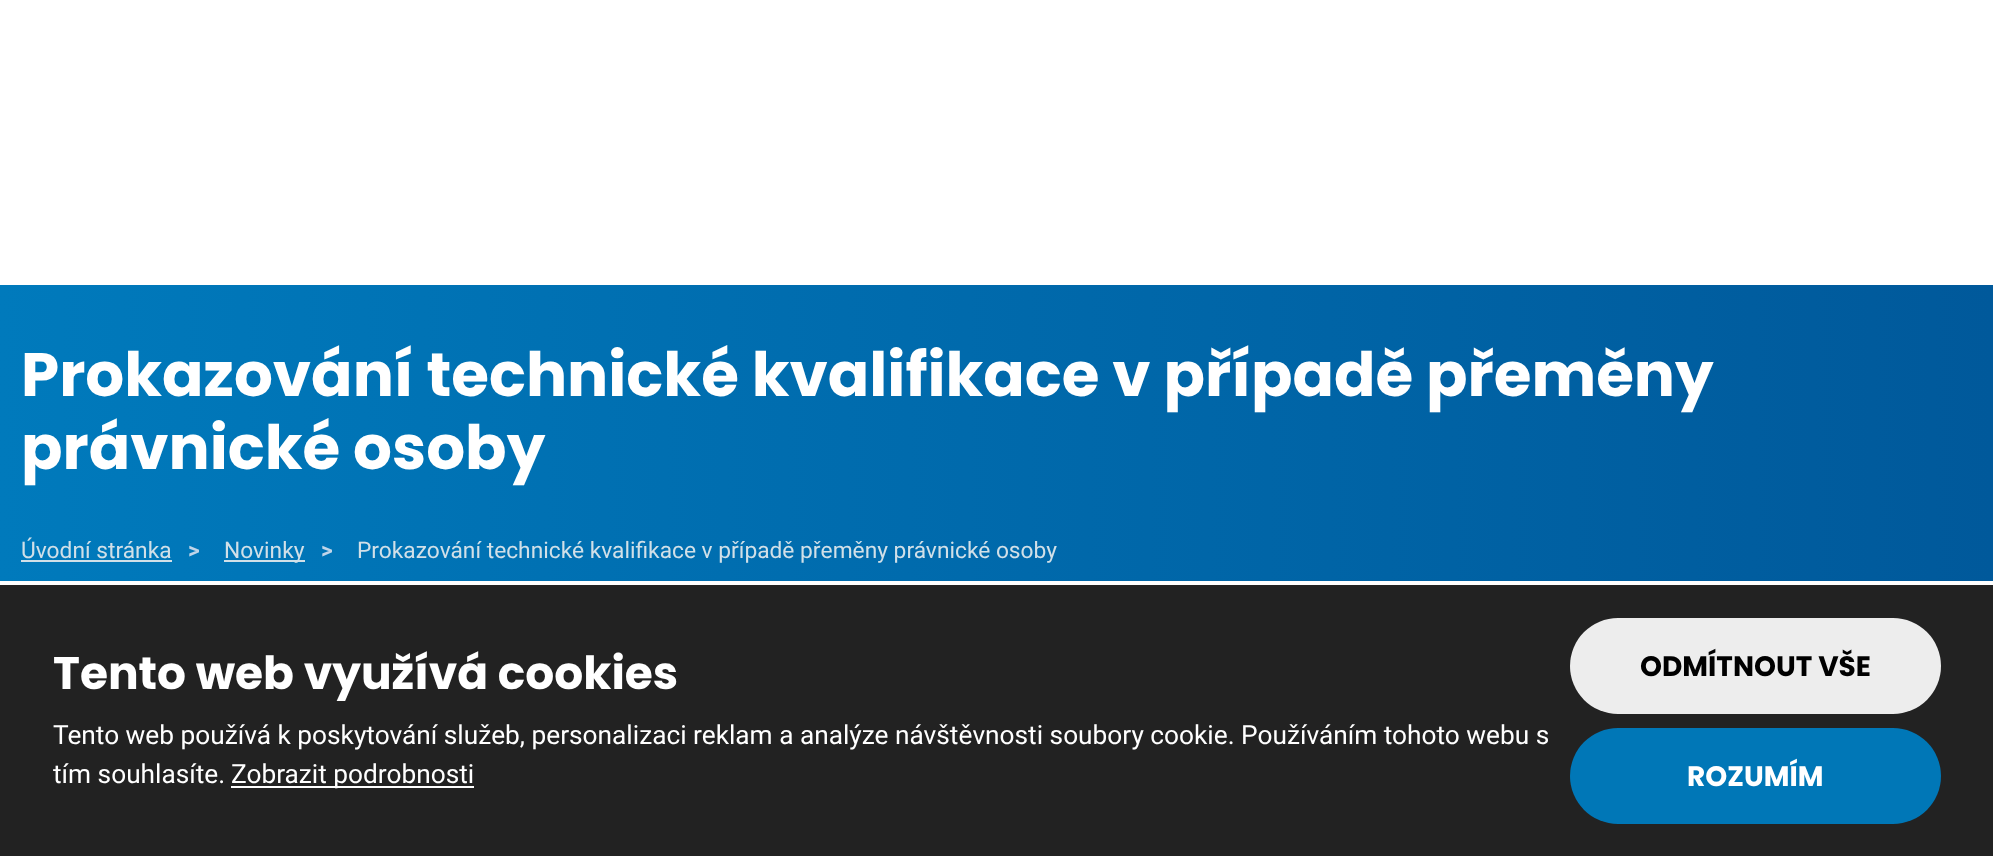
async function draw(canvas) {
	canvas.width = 1993;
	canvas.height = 856;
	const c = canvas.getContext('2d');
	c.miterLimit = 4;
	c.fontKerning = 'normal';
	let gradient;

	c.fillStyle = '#fff';
	c.fillRect(0, 0, 1993, 856);
	gradient = c.createLinearGradient(1993, 433, 0, 433);
	gradient.addColorStop(0, '#00599b');
	gradient.addColorStop(1, '#007abc');
	c.fillStyle = gradient;
	c.fillRect(0, 285, 1993, 296);
	c.font = 'bold 61.15px Poppins';
	c.fillStyle = '#fff';
	c.fillText('Prokazování technické kvalifikace v případě přeměny', 21, 396);
	c.fillText('právnické osoby', 21, 469);
	c.font = '22.75px Roboto';
	c.fillStyle = '#d1e0e8';
	c.fillText('Úvodní stránka', 21, 558);
	c.fillRect(21, 560, 151, 2);
	c.font = 'bold 22.75px Roboto';
	c.fillStyle = '#c0d5e9';
	c.fillText('>', 188, 558);
	c.fillStyle = '#d1e0e8';
	c.fillRect(224, 560, 81, 2);
	c.font = '22.75px Roboto';
	c.fillText('Novinky', 224, 558);
	c.font = 'bold 22.75px Roboto';
	c.fillStyle = '#c0d5e9';
	c.fillText('>', 321, 558);
	c.font = '22.75px Roboto';
	c.fillStyle = '#d1e0e8';
	c.fillText('Prokazování technické kvalifikace v případě přeměny právnické osoby', 357, 558);
	c.fillStyle = '#222';
	c.fillRect(0, 585, 1993, 271);
	c.font = 'bold 45.5px Poppins';
	c.fillStyle = '#fff';
	c.fillText('Tento web využívá cookies', 53, 689);
	c.font = '26.25px Roboto';
	c.fillText('Tento web používá k poskytování služeb, personalizaci reklam a analýze návštěvnosti soubory cookie. Používáním tohoto webu s', 53, 744);
	c.fillText('tím souhlasíte.', 53, 783);
	c.fillRect(231, 786, 243, 2);
	c.fillText('Zobrazit podrobnosti', 231, 783);
	c.fillStyle = '#ededed';
	c.beginPath();
	c.roundRect(1570, 618, 371, 96, 48);
	c.fill();
	c.font = 'bold 28px Poppins';
	c.fillStyle = '#000';
	c.fillText('ODMÍTNOUT VŠE', 1640, 676);
	c.fillStyle = '#0077b7';
	c.beginPath();
	c.roundRect(1570, 728, 371, 96, 48);
	c.fill();
	c.fillStyle = '#fff';
	c.fillText('ROZUMÍM', 1687, 786);
}

draw(document.querySelector('canvas'));
